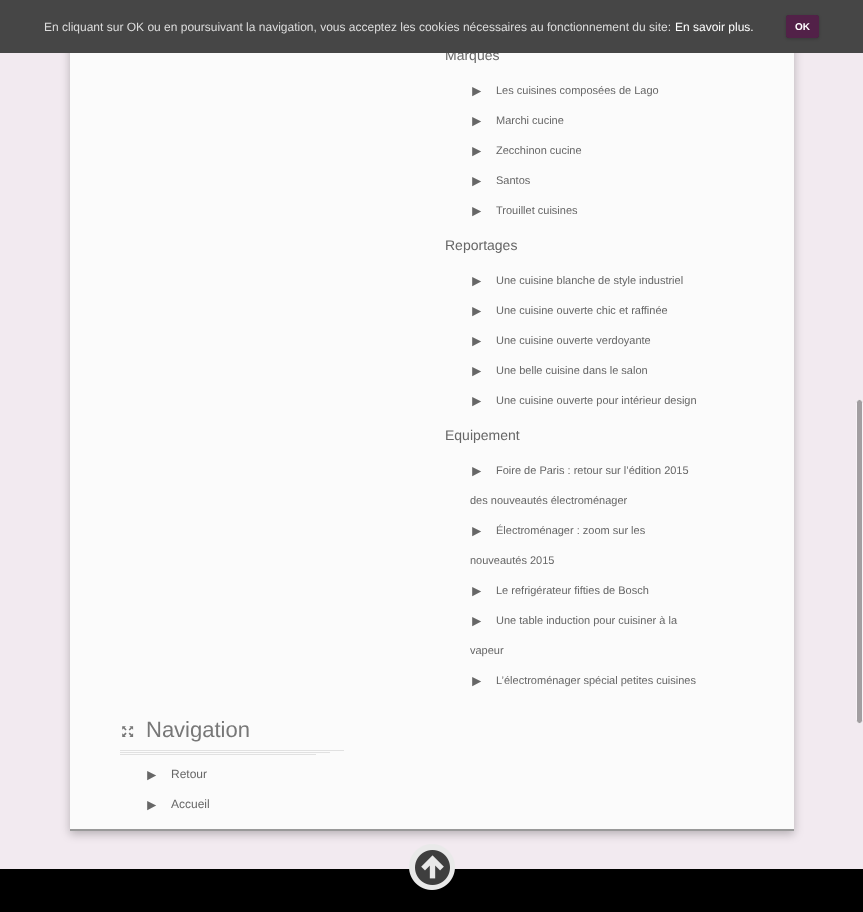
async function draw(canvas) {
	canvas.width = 863;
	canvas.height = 912;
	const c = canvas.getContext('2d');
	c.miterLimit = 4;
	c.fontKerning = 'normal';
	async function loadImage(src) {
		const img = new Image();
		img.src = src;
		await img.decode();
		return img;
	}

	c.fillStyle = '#f2eaf0';
	c.fillRect(0, 0, 863, 912);
	c.fillStyle = '#000';
	c.fillRect(0, 869, 863, 43);
	c.drawImage(await loadImage('img1.png'), 409, 844, 46, 46);
	c.fillStyle = '#00000040';
	c.filter = 'blur(5px)';
	c.beginPath();
	c.rect(70, -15, 724, 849);
	c.fill();
	c.filter = 'none';
	c.fillStyle = '#fbfbfb';
	c.fillRect(70, 53, 724, 776);
	c.font = '14px Liberation Sans';
	c.fillStyle = '#666';
	c.fillText('Marques', 445, 60);
	c.fillStyle = '#464646';
	c.fillRect(0, 0, 863, 53);
	c.font = '12px Liberation Sans';
	c.fillStyle = '#ddd';
	c.fillText('En cliquant sur OK ou en poursuivant la navigation, vous acceptez les cookies nécessaires au fonctionnement du site:', 44, 31);
	c.fillStyle = '#fff';
	c.fillText('En savoir plus.', 675, 31);
	c.fillStyle = '#00000033';
	c.filter = 'blur(1.5px)';
	c.beginPath();
	c.roundRect(786, 16, 33, 23, 3);
	c.fill();
	c.filter = 'none';
	c.filter = 'blur(0.5px)';
	c.beginPath();
	c.roundRect(786, 15, 33, 23, 3);
	c.fill();
	c.filter = 'none';
	c.fillStyle = '#522148';
	c.beginPath();
	c.roundRect(786, 15, 33, 23, 3);
	c.fill();
	c.font = 'bold 10px Liberation Sans';
	c.fillStyle = '#fff';
	c.fillText('OK', 795, 30);
	c.fillStyle = '#999';
	c.fillRect(70, 829, 724, 2);
	c.font = '22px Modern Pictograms';
	c.fillStyle = '#666';
	c.fillText('>', 470, 97);
	c.font = '11px Liberation Sans';
	c.fillText('Les cuisines composées de Lago', 496, 94);
	c.font = '22px Modern Pictograms';
	c.fillText('>', 470, 127);
	c.font = '11px Liberation Sans';
	c.fillText('Marchi cucine', 496, 124);
	c.font = '22px Modern Pictograms';
	c.fillText('>', 470, 157);
	c.font = '11px Liberation Sans';
	c.fillText('Zecchinon cucine', 496, 154);
	c.font = '22px Modern Pictograms';
	c.fillText('>', 470, 187);
	c.font = '11px Liberation Sans';
	c.fillText('Santos', 496, 184);
	c.font = '22px Modern Pictograms';
	c.fillText('>', 470, 217);
	c.font = '11px Liberation Sans';
	c.fillText('Trouillet cuisines', 496, 214);
	c.font = '14px Liberation Sans';
	c.fillText('Reportages', 445, 250);
	c.font = '22px Modern Pictograms';
	c.fillText('>', 470, 287);
	c.font = '11px Liberation Sans';
	c.fillText('Une cuisine blanche de style industriel', 496, 284);
	c.font = '22px Modern Pictograms';
	c.fillText('>', 470, 317);
	c.font = '11px Liberation Sans';
	c.fillText('Une cuisine ouverte chic et raffinée', 496, 314);
	c.font = '22px Modern Pictograms';
	c.fillText('>', 470, 347);
	c.font = '11px Liberation Sans';
	c.fillText('Une cuisine ouverte verdoyante', 496, 344);
	c.font = '22px Modern Pictograms';
	c.fillText('>', 470, 377);
	c.font = '11px Liberation Sans';
	c.fillText('Une belle cuisine dans le salon', 496, 374);
	c.font = '22px Modern Pictograms';
	c.fillText('>', 470, 407);
	c.font = '11px Liberation Sans';
	c.fillText('Une cuisine ouverte pour intérieur design', 496, 404);
	c.font = '14px Liberation Sans';
	c.fillText('Equipement', 445, 440);
	c.font = '22px Modern Pictograms';
	c.fillText('>', 470, 477);
	c.font = '11px Liberation Sans';
	c.fillText('Foire de Paris : retour sur l’édition 2015', 496, 474);
	c.fillText('des nouveautés électroménager', 470, 504);
	c.font = '22px Modern Pictograms';
	c.fillText('>', 470, 537);
	c.font = '11px Liberation Sans';
	c.fillText('Électroménager : zoom sur les', 496, 534);
	c.fillText('nouveautés 2015', 470, 564);
	c.font = '22px Modern Pictograms';
	c.fillText('>', 470, 597);
	c.font = '11px Liberation Sans';
	c.fillText('Le refrigérateur fifties de Bosch', 496, 594);
	c.font = '22px Modern Pictograms';
	c.fillText('>', 470, 627);
	c.font = '11px Liberation Sans';
	c.fillText('Une table induction pour cuisiner à la', 496, 624);
	c.fillText('vapeur', 470, 654);
	c.font = '22px Modern Pictograms';
	c.fillText('>', 470, 687);
	c.font = '11px Liberation Sans';
	c.fillText('L’électroménager spécial petites cuisines', 496, 684);
	c.font = '22px Modern Pictograms';
	c.fillStyle = '#777';
	c.fillText('v', 120, 737);
	c.font = '22px Liberation Sans';
	c.fillText('Navigation', 146, 737);
	for (const [x, y, w, h, color] of [
		[120, 750, 224, 1, '#e1e1e1'],
		[120, 752, 210, 1, '#e1e1e1'],
		[120, 754, 196, 1, '#e1e1e1'],
	]) {
		c.fillStyle = color;
		c.fillRect(x, y, w, h);
	}
	c.font = '22px Modern Pictograms';
	c.fillStyle = '#666';
	c.fillText('>', 145, 781);
	c.font = '12px Liberation Sans';
	c.fillText('Retour', 171, 778);
	c.font = '22px Modern Pictograms';
	c.fillText('>', 145, 811);
	c.font = '12px Liberation Sans';
	c.fillText('Accueil', 171, 808);
	c.fillStyle = '#a29ea1';
	c.beginPath();
	c.roundRect(856.5, 399.5, 6, 324, 3);
	c.fill();
	c.strokeStyle = '#f8f3f7';
	c.stroke();
}

draw(document.querySelector('canvas'));
